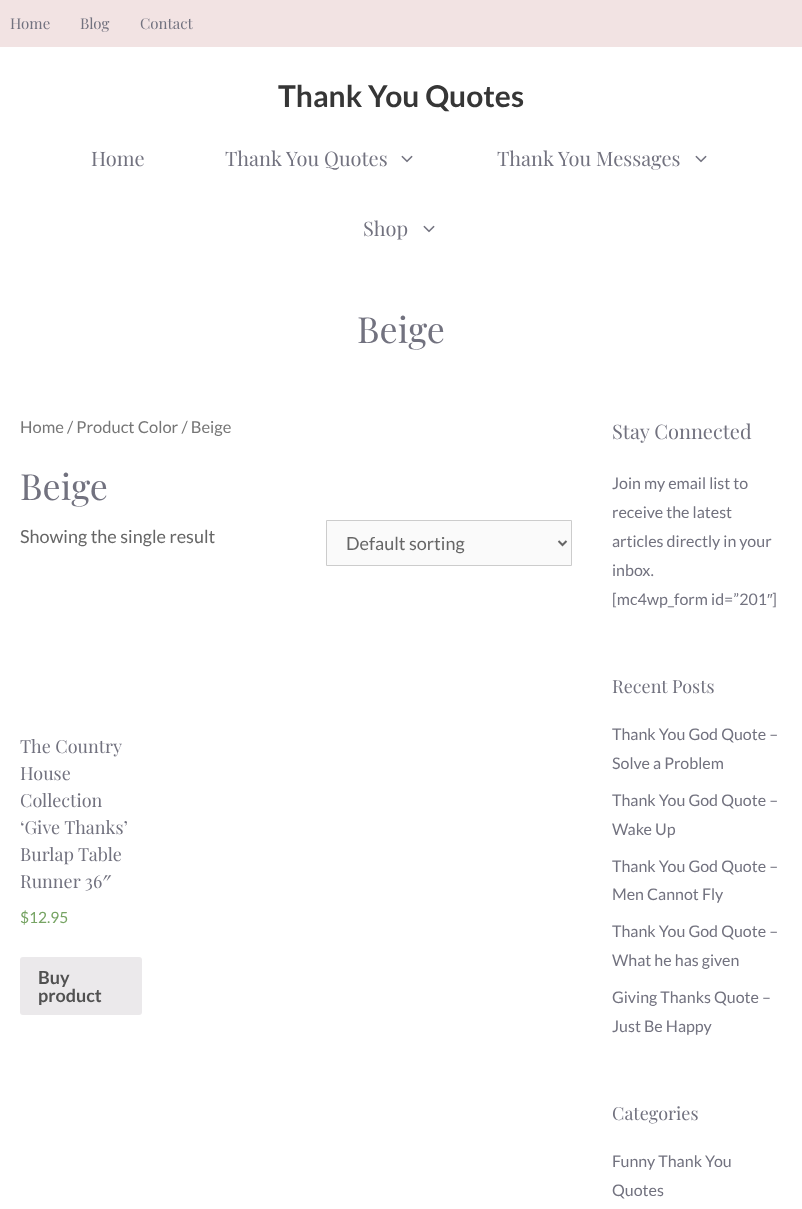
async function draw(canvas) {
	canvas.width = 802;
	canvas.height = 1209;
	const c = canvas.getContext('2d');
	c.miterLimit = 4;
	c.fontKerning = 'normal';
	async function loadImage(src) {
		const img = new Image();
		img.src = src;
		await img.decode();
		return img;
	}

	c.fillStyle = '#fff';
	c.fillRect(0, 0, 802, 1209);
	c.fillStyle = '#f2e3e3';
	c.fillRect(0, 0, 802, 47);
	c.font = '15px Playfair Display';
	c.fillStyle = '#72727f';
	for (const [text, x, y] of [
		['Home', 10, 29],
		['Blog', 80, 29],
		['Contact', 140, 29],
	]) {
		c.fillText(text, x, y);
	}
	c.font = 'bold 30px Lato';
	c.fillStyle = '#363636';
	c.fillText('Thank You Quotes', 278, 107);
	c.font = '20px Playfair Display';
	c.fillStyle = '#72727f';
	c.fillText('Home', 91, 166);
	c.fillText('Thank You Quotes', 225, 166);
	c.drawImage(await loadImage('img1.png'), 401, 155, 12, 8);
	c.fillText('Thank You Messages', 497, 166);
	c.drawImage(await loadImage('img1.png'), 695, 155, 12, 8);
	c.fillText('Shop', 363, 236);
	c.drawImage(await loadImage('img1.png'), 423, 225, 12, 8);
	c.font = '36px Playfair Display';
	c.fillText('Beige', 357, 343);
	c.font = '16.5px Lato';
	c.fillStyle = '#767676';
	c.fillText('Home / Product Color / Beige', 20, 433);
	c.font = '36px Playfair Display';
	c.fillStyle = '#72727f';
	c.fillText('Beige', 20, 500);
	c.font = '18px Lato';
	c.fillStyle = '#666';
	c.fillText('Showing the single result', 20, 543);
	c.fillStyle = '#fafafa';
	c.beginPath();
	c.rect(326.5, 520.5, 245, 45);
	c.fill();
	c.strokeStyle = '#ccc';
	c.stroke();
	c.beginPath();
	c.moveTo(558.5, 541);
	c.lineTo(562.5, 545);
	c.lineTo(566.5, 541);
	c.strokeStyle = '#666';
	c.lineWidth = 2;
	c.stroke();
	c.fillStyle = '#666';
	c.fillText('Default sorting', 346, 550);
	c.font = '18px Playfair Display';
	c.fillStyle = '#72727f';
	for (const [text, x, y] of [
		['The Country', 20, 753],
		['House', 20, 780],
		['Collection', 20, 807],
		['‘Give Thanks’', 20, 834],
		['Burlap Table', 20, 861],
		['Runner 36″', 20, 888],
	]) {
		c.fillText(text, x, y);
	}
	c.font = '15.5px Lato';
	c.fillStyle = '#77a464';
	c.fillText('$12.95', 20, 923);
	c.fillStyle = '#ebe9eb';
	c.beginPath();
	c.roundRect(20, 957, 122, 58, 3);
	c.fill();
	c.font = 'bold 18px Lato';
	c.fillStyle = '#515151';
	c.fillText('Buy', 38, 984);
	c.fillText('product', 38, 1002);
	c.font = '20px Playfair Display';
	c.fillStyle = '#72727f';
	c.fillText('Stay Connected', 612, 439);
	c.font = '16px Lato';
	for (const [text, x, y] of [
		['Join my email list to', 612, 489],
		['receive the latest', 612, 518],
		['articles directly in your', 612, 547],
		['inbox.', 612, 576],
		['[mc4wp_form id=”201', 612, 605],
	]) {
		c.fillText(text, x, y);
	}
	c.font = '16px Liberation Sans';
	c.fillText('″', 767, 605);
	c.font = '16px Lato';
	c.fillText(']', 772, 605);
	c.font = '18px Playfair Display';
	c.fillText('Recent Posts', 612, 693);
	c.font = '16px Lato';
	for (const [text, x, y] of [
		['Thank You God Quote –', 612, 740],
		['Solve a Problem', 612, 769],
		['Thank You God Quote –', 612, 806],
		['Wake Up', 612, 835],
		['Thank You God Quote –', 612, 872],
		['Men Cannot Fly', 612, 900],
		['Thank You God Quote –', 612, 937],
		['What he has given', 612, 966],
		['Giving Thanks Quote –', 612, 1003],
		['Just Be Happy', 612, 1032],
	]) {
		c.fillText(text, x, y);
	}
	c.font = '18px Playfair Display';
	c.fillText('Categories', 612, 1120);
	c.font = '16px Lato';
	c.fillText('Funny Thank You', 612, 1167);
	c.fillText('Quotes', 612, 1196);
}

draw(document.querySelector('canvas'));
